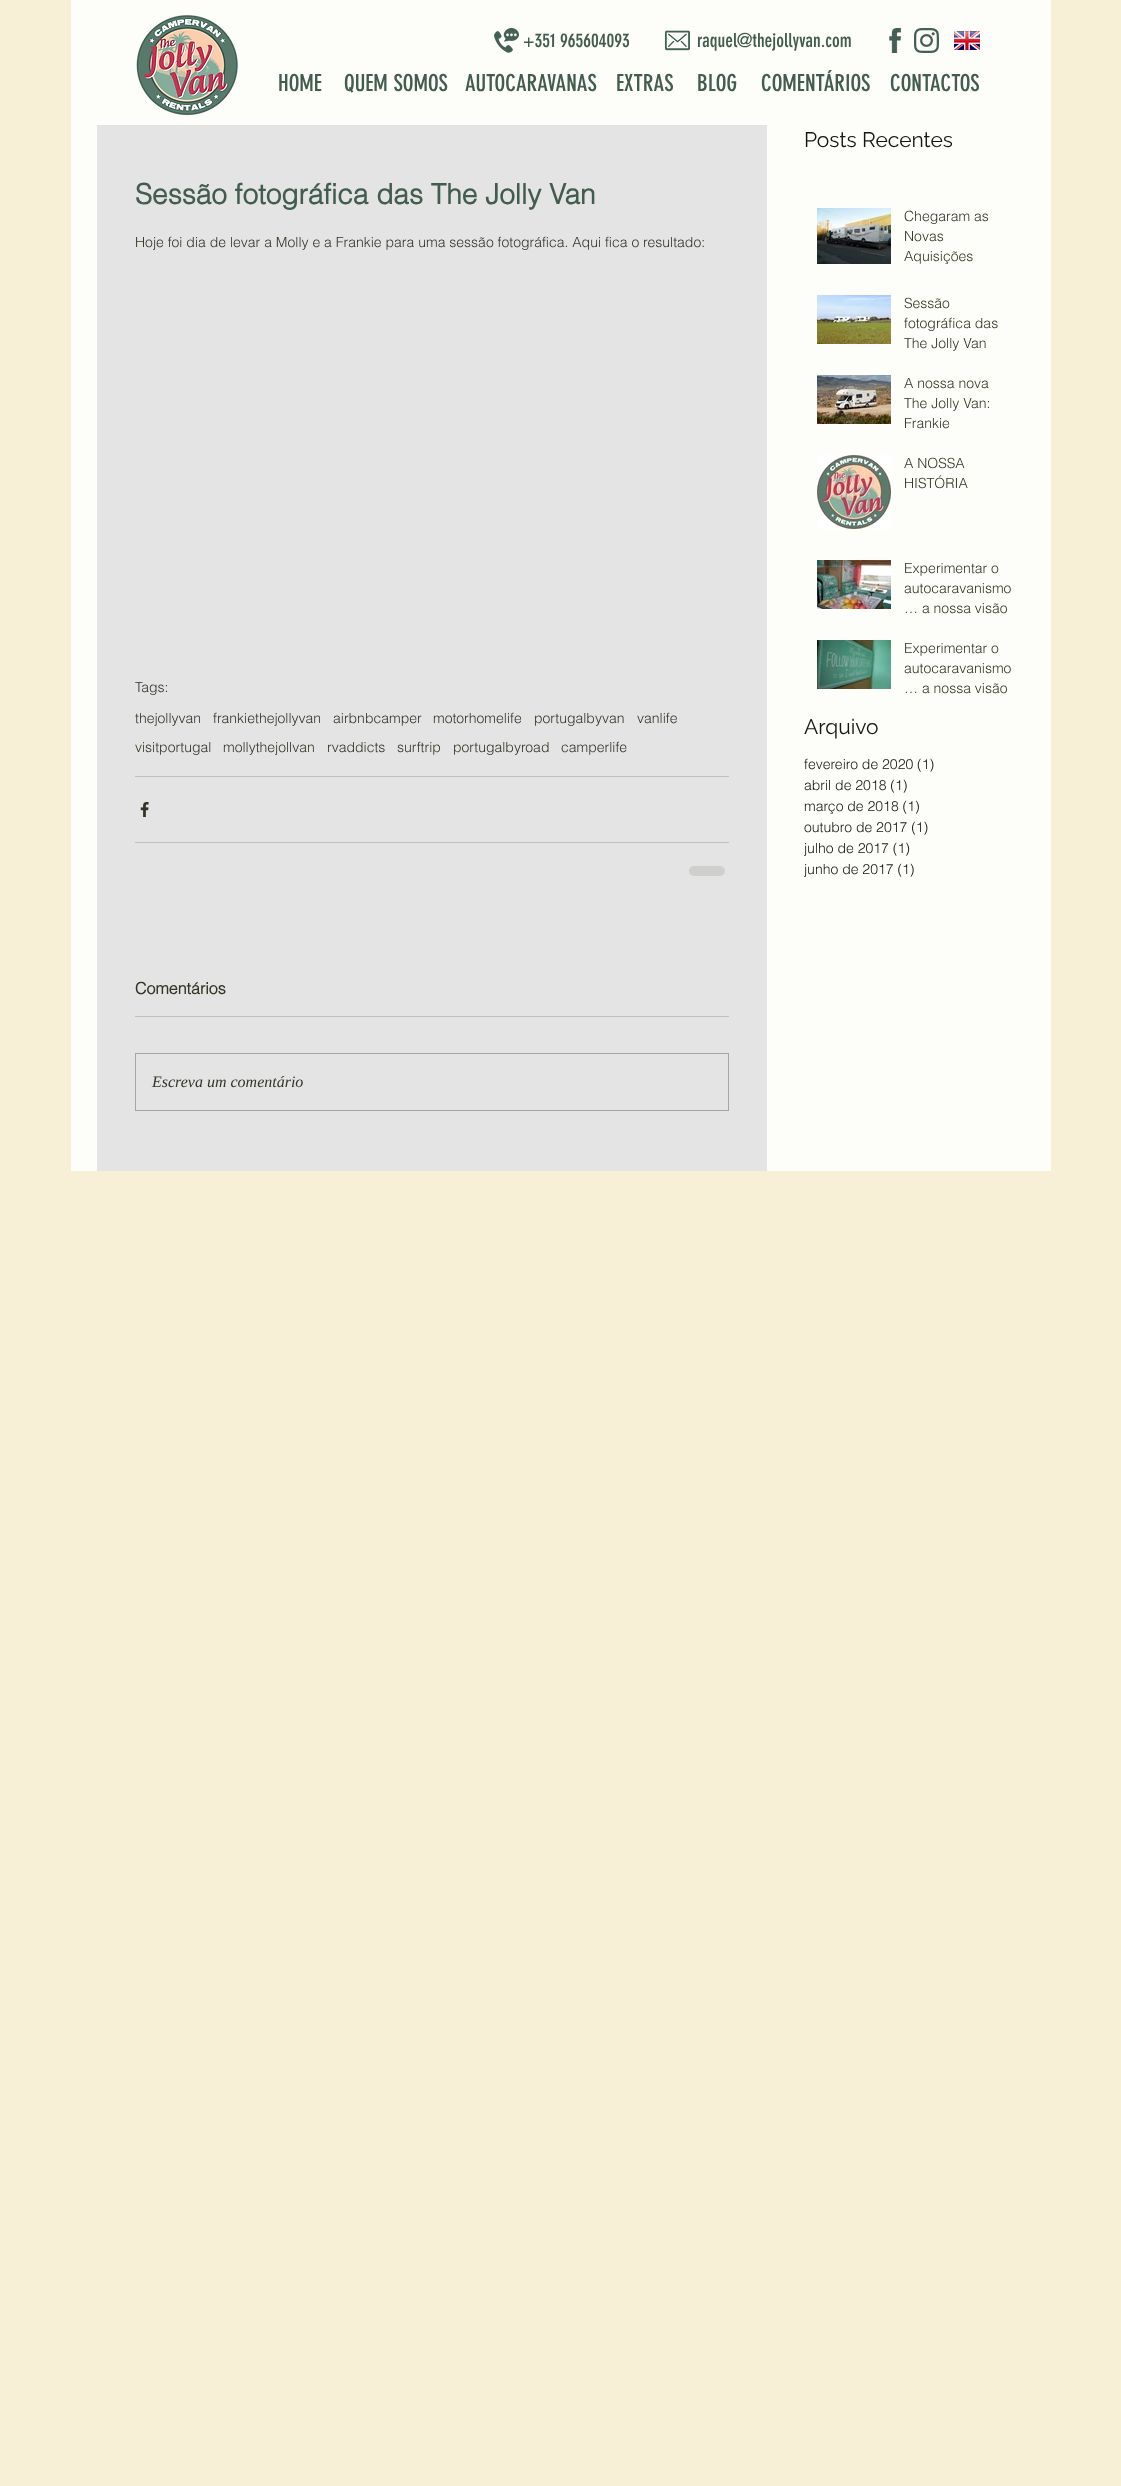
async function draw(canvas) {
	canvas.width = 1121;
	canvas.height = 2486;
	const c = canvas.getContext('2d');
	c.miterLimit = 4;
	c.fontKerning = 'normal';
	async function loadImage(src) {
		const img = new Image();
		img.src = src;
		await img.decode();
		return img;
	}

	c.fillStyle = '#f7f0d7';
	c.fillRect(0, 0, 1121, 2486);
	c.fillStyle = '#fefdfa';
	c.fillRect(71, 0, 980, 5);
	c.fillStyle = '#fdfdf9';
	c.fillRect(71, 5, 980, 1166);
	c.drawImage(await loadImage('img1.png'), 136, 15, 102, 101);
	c.drawImage(await loadImage('img2.png'), 494, 28, 25, 25);
	c.font = '19px "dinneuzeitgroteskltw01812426"';
	c.fillStyle = '#425c4d';
	c.fillText('+351 965604093', 523, 47);
	c.drawImage(await loadImage('img3.png'), 665, 30, 25, 21);
	c.fillText('raquel@thejollyvan.com', 697, 47);
	c.drawImage(await loadImage('img4.png'), 889, 28, 13, 25);
	c.drawImage(await loadImage('img5.png'), 914, 28, 25, 25);
	c.drawImage(await loadImage('img6.png'), 954, 31, 26, 19);
	c.font = '23px "dinneuzeitgroteskltw01812426"';
	for (const [text, x, y] of [
		['HOME', 278, 91],
		['QUEM SOMOS', 344, 91],
		['AUTOCARAVANAS', 465, 91],
		['EXTRAS', 616, 91],
		['BLOG', 697, 91],
		['COMENTÁRIOS', 761, 91],
		['CONTACTOS', 890, 91],
	]) {
		c.fillText(text, x, y);
	}
	c.font = '21px Raleway';
	c.fillStyle = '#141414';
	c.fillText('Posts Recentes', 804, 147);
	c.fillStyle = '#fff';
	c.fillRect(804, 181, 220, 1);
	c.fillStyle = '#e4e4e4';
	c.fillRect(97, 125, 670, 1046);
	c.font = 'bold 28px helvetica';
	c.fillStyle = '#425c4d';
	c.fillText('Sessão fotográfica das The Jolly Van', 135, 204);
	c.font = '300 14px helvetica';
	c.fillStyle = '#313523';
	for (const [text, x, y] of [
		['Hoje foi dia de levar a Molly e a Frankie para uma sessão fotográfica. Aqui fica o resultado:', 135, 247],
		['Tags:', 135, 692],
		['thejollyvan', 135, 723],
		['frankiethejollyvan', 213, 723],
		['airbnbcamper', 333, 723],
		['motorhomelife', 433, 723],
		['portugalbyvan', 534, 723],
		['vanlife', 637, 723],
		['visitportugal', 135, 752],
		['mollythejollvan', 223, 752],
		['rvaddicts', 327, 752],
		['surftrip', 397, 752],
		['portugalbyroad', 453, 752],
		['camperlife', 561, 752],
	]) {
		c.fillText(text, x, y);
	}
	c.fillStyle = '#c0c1bd';
	c.fillRect(135, 776, 594, 1);
	c.drawImage(await loadImage('img7.png'), 140, 802, 9, 15);
	c.fillRect(135, 842, 594, 1);
	c.fillStyle = '#cfcfcd';
	c.beginPath();
	c.roundRect(689, 866, 36, 10, 5);
	c.fill();
	c.font = 'bold 16px helvetica';
	c.fillStyle = '#313523';
	c.fillText('Comentários', 135, 994);
	c.fillStyle = '#c0c1bd';
	c.fillRect(135, 1016, 594, 1);
	c.strokeStyle = '#a6a6a6';
	c.strokeRect(135.5, 1053.5, 593, 57);
	c.font = 'italic 16px Liberation Serif';
	c.fillStyle = '#313523';
	c.fillText('Escreva um comentário', 152, 1087);
	c.drawImage(await loadImage('img8.png'), 817, 208, 74, 56);
	c.font = '300 14px helvetica';
	for (const [text, x, y] of [
		['Chegaram as', 904, 221],
		['Novas', 904, 241],
		['Aquisições', 904, 261],
	]) {
		c.fillText(text, x, y);
	}
	c.drawImage(await loadImage('img9.png'), 817, 295, 74, 49);
	for (const [text, x, y] of [
		['Sessão', 904, 308],
		['fotográfica das', 904, 328],
		['The Jolly Van', 904, 348],
	]) {
		c.fillText(text, x, y);
	}
	c.drawImage(await loadImage('img10.png'), 817, 375, 74, 49);
	for (const [text, x, y] of [
		['A nossa nova', 904, 388],
		['The Jolly Van:', 904, 408],
		['Frankie', 904, 428],
	]) {
		c.fillText(text, x, y);
	}
	c.drawImage(await loadImage('img11.png'), 817, 455, 74, 74);
	c.fillText('A NOSSA', 904, 468);
	c.fillText('HISTÓRIA', 904, 488);
	c.drawImage(await loadImage('img12.png'), 817, 560, 74, 49);
	for (const [text, x, y] of [
		['Experimentar o', 904, 573],
		['autocaravanismo', 904, 593],
		['… a nossa visão', 904, 613],
	]) {
		c.fillText(text, x, y);
	}
	c.drawImage(await loadImage('img13.png'), 817, 640, 74, 49);
	for (const [text, x, y] of [
		['Experimentar o', 904, 653],
		['autocaravanismo', 904, 673],
		['… a nossa visão', 904, 693],
	]) {
		c.fillText(text, x, y);
	}
	c.font = '21px Raleway';
	c.fillStyle = '#141414';
	c.fillText('Arquivo', 804, 734);
	c.font = '300 14px helvetica';
	for (const [text, x, y] of [
		['fevereiro de 2020 (1)', 804, 769],
		['abril de 2018 (1)', 804, 790],
		['março de 2018 (1)', 804, 811],
		['outubro de 2017 (1)', 804, 832],
		['julho de 2017 (1)', 804, 853],
		['junho de 2017 (1)', 804, 874],
	]) {
		c.fillText(text, x, y);
	}
	c.fillStyle = '#fff';
	c.fillRect(804, 890, 220, 1);
}

draw(document.querySelector('canvas'));
